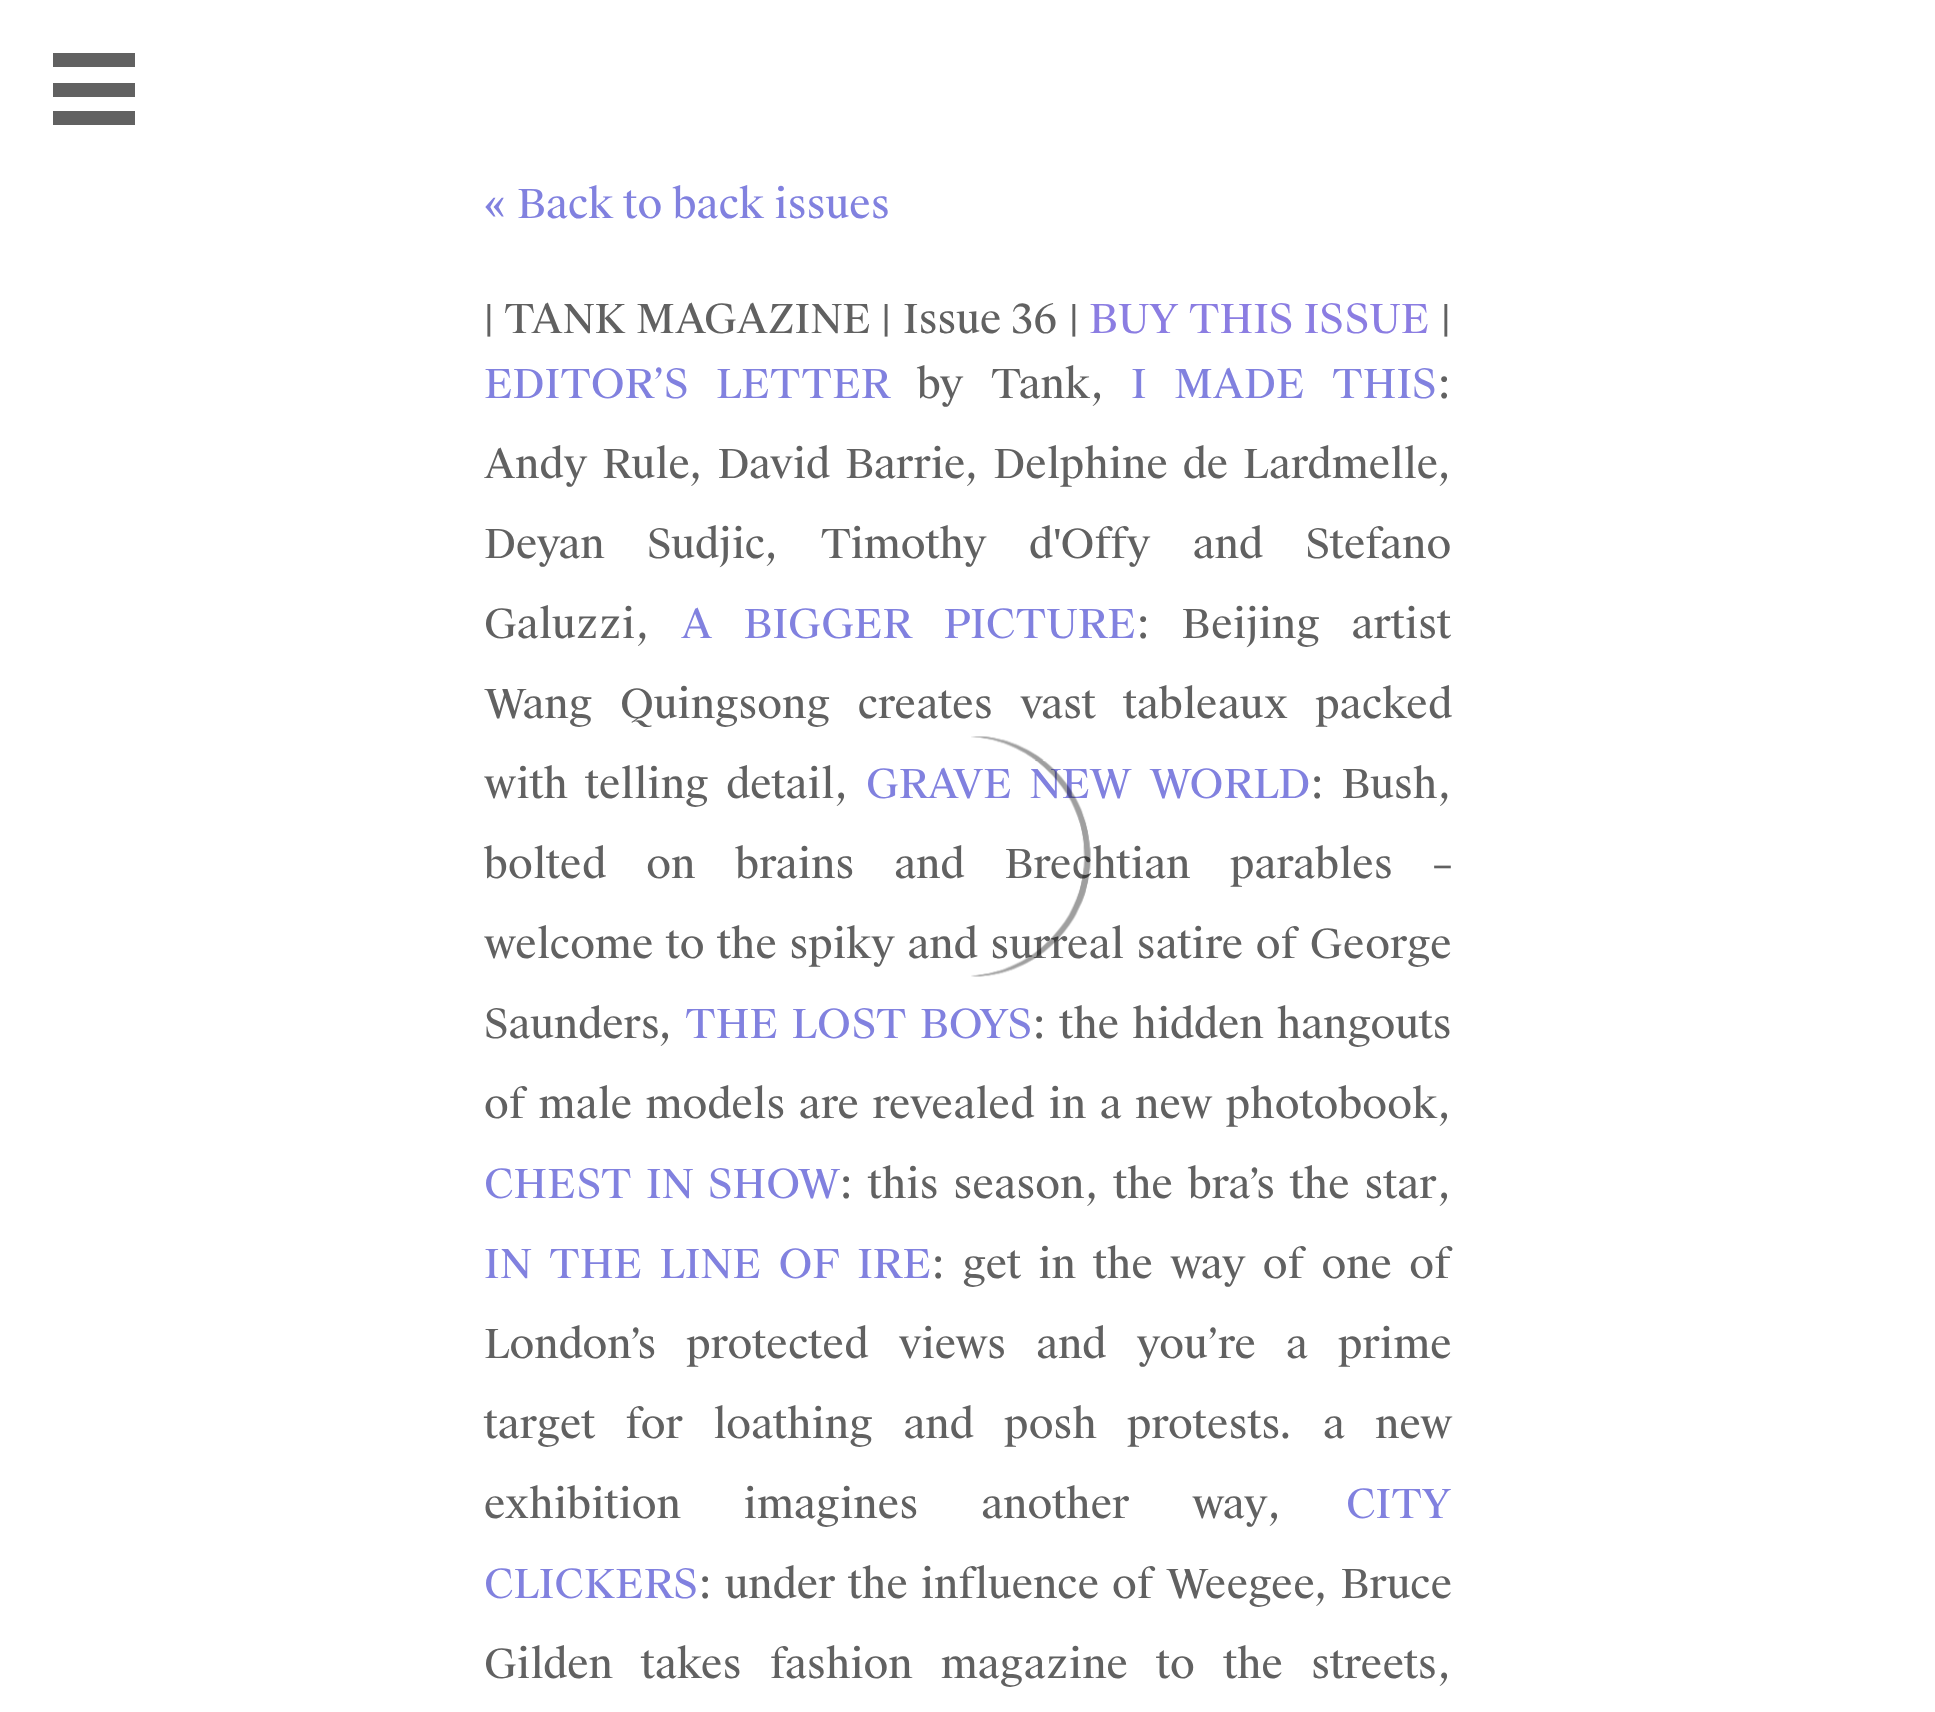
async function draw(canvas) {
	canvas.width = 1935;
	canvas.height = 1712;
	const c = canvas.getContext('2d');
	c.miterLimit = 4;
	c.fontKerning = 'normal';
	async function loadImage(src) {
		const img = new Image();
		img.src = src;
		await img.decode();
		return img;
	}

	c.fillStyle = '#fff';
	c.fillRect(0, 0, 1935, 1712);
	for (const [x, y, w, h, color] of [
		[53, 53, 82, 14, '#616161'],
		[53, 83, 82, 14, '#616161'],
		[53, 111, 82, 14, '#616161'],
	]) {
		c.fillStyle = color;
		c.fillRect(x, y, w, h);
	}
	c.font = '40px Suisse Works';
	c.fillStyle = '#8181df';
	c.fillText('« Back to back issues', 484, 218);
	c.fillStyle = '#616161';
	for (const [text, x, y] of [
		['|', 484, 333],
		['TANK MAGAZINE |', 504, 333],
		['Issue 36', 903, 333],
		['|', 1069, 333],
	]) {
		c.fillText(text, x, y);
	}
	c.fillStyle = '#8b7de2';
	c.fillText('BUY THIS ISSUE', 1089, 333);
	c.fillStyle = '#616161';
	c.fillText('|', 1441, 333);
	c.wordSpacing = '17px';
	c.fillStyle = '#8181df';
	c.fillText('EDITOR’S LETTER', 484, 398);
	c.fillStyle = '#616161';
	c.fillText('by Tank', 917, 398);
	c.wordSpacing = '0px';
	c.fillText(',', 1090, 398);
	c.wordSpacing = '17px';
	c.fillStyle = '#8181df';
	c.fillText('I MADE THIS', 1131, 398);
	c.wordSpacing = '0px';
	c.fillStyle = '#616161';
	c.fillText(':', 1437, 398);
	c.wordSpacing = '4.5px';
	c.fillText('Andy Rule, David Barrie, Delphine de Lardmelle,', 484, 478);
	c.wordSpacing = '32px';
	c.fillText('Deyan Sudjic, Timothy d\'Offy and Stefano', 484, 558);
	c.wordSpacing = '0px';
	c.fillText('Galuzzi,', 484, 638);
	c.wordSpacing = '21px';
	c.fillStyle = '#8181df';
	c.fillText('A BIGGER PICTURE', 681, 638);
	c.fillStyle = '#616161';
	c.fillText(': Beijing artist', 1136, 638);
	c.wordSpacing = '17px';
	c.fillText('Wang Quingsong creates vast tableaux packed', 484, 718);
	c.wordSpacing = '7px';
	c.fillText('with telling detail', 484, 798);
	c.wordSpacing = '0px';
	c.fillText(',', 834, 798);
	c.wordSpacing = '7px';
	c.fillStyle = '#8181df';
	c.fillText('GRAVE NEW WORLD', 866, 798);
	c.fillStyle = '#616161';
	c.fillText(': Bush,', 1310, 798);
	c.wordSpacing = '29.5px';
	c.fillText('bolted on brains and Brechtian parables –', 484, 878);
	c.wordSpacing = '2.25px';
	c.fillText('welcome to the spiky and surreal satire of George', 484, 958);
	c.wordSpacing = '0px';
	c.fillText('Saunders', 484, 1038);
	c.fillText(',', 658, 1038);
	c.wordSpacing = '3px';
	c.fillStyle = '#8181df';
	c.fillText('THE LOST BOYS', 685, 1038);
	c.fillStyle = '#616161';
	c.fillText(': the hidden hangouts', 1032, 1038);
	c.wordSpacing = '3.25px';
	c.fillText('of male models are revealed in a new photobook', 484, 1118);
	c.wordSpacing = '0px';
	c.fillText(',', 1437, 1118);
	c.wordSpacing = '4px';
	c.fillStyle = '#8181df';
	c.fillText('CHEST IN SHOW', 484, 1198);
	c.wordSpacing = '4.5px';
	c.fillStyle = '#616161';
	c.fillText(': this season, the bra’s the star', 839, 1198);
	c.wordSpacing = '0px';
	c.fillText(',', 1437, 1198);
	c.wordSpacing = '7px';
	c.fillStyle = '#8181df';
	c.fillText('IN THE LINE OF IRE', 484, 1278);
	c.fillStyle = '#616161';
	c.fillText(': get in the way of one of', 931, 1278);
	c.wordSpacing = '19.75px';
	c.fillText('London’s protected views and you’re a prime', 484, 1358);
	c.wordSpacing = '20px';
	c.fillText('target for loathing and posh protests. a new', 484, 1438);
	c.wordSpacing = '52.5px';
	c.fillText('exhibition imagines another way', 484, 1518);
	c.wordSpacing = '0px';
	c.fillText(',', 1267, 1518);
	c.fillStyle = '#8181df';
	c.fillText('CITY', 1346, 1518);
	c.fillText('CLICKERS', 484, 1598);
	c.wordSpacing = '2.5px';
	c.fillStyle = '#616161';
	c.fillText(': under the influence of Weegee, Bruce', 698, 1598);
	c.wordSpacing = '18px';
	c.fillText('Gilden takes fashion magazine to the streets', 484, 1678);
	c.wordSpacing = '0px';
	c.fillText(',', 1437, 1678);
	c.drawImage(await loadImage('img1.png'), 971, 736, 120, 241);
}

draw(document.querySelector('canvas'));
